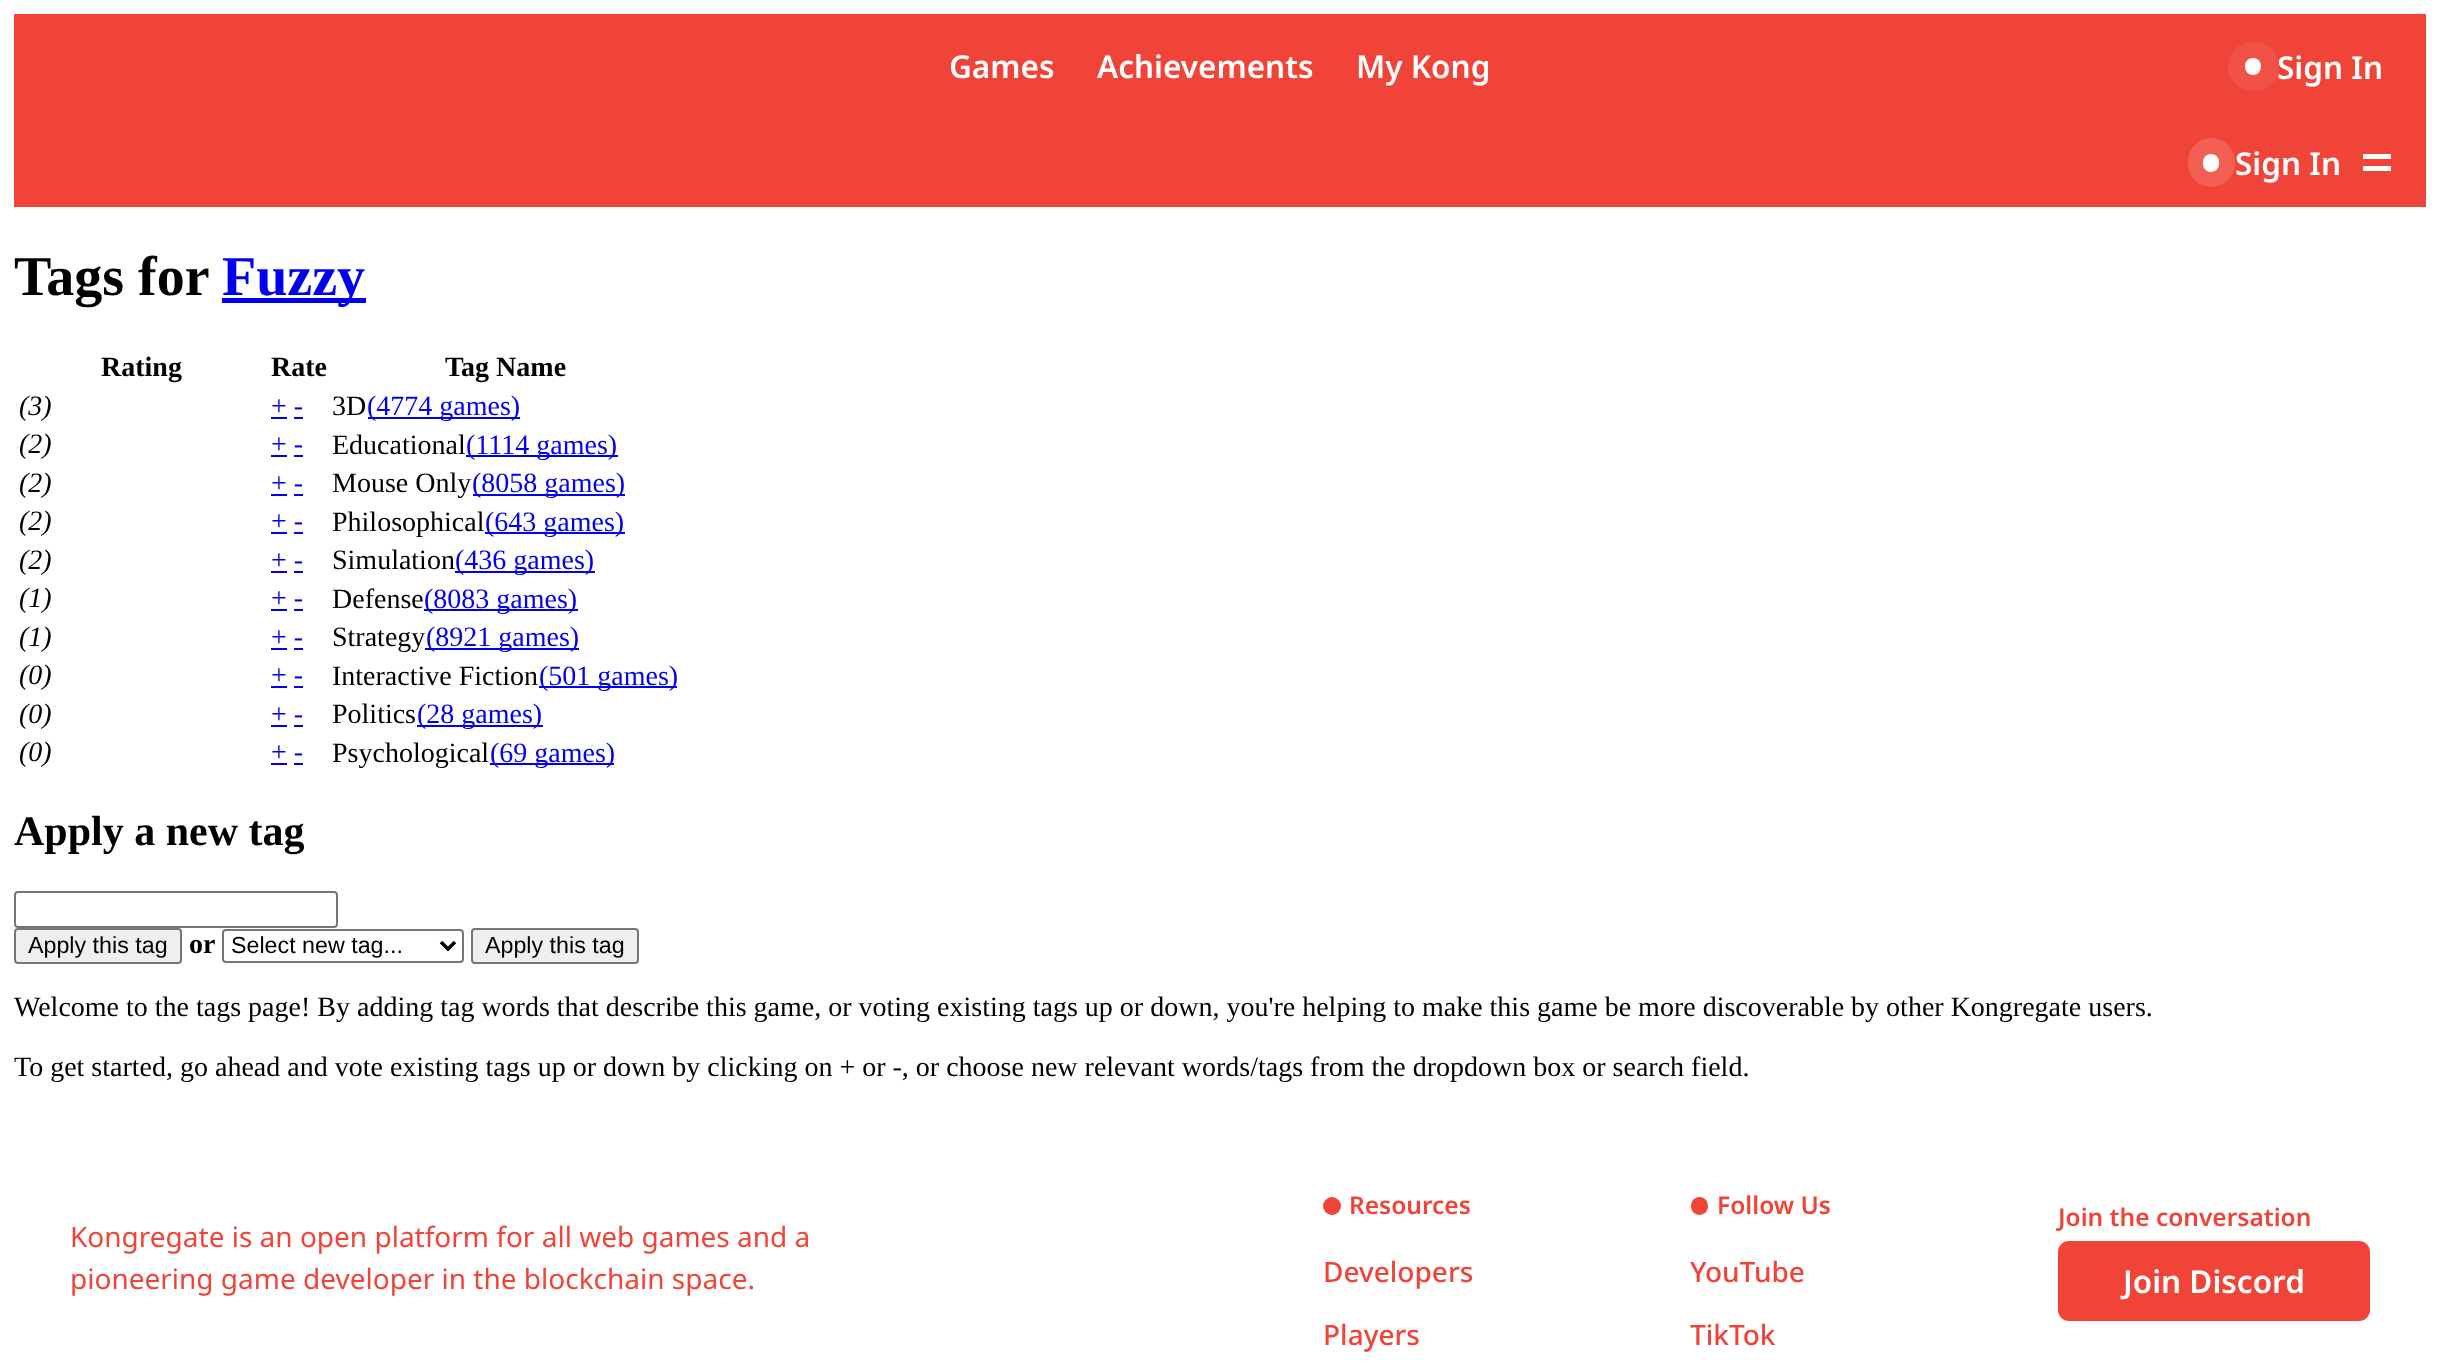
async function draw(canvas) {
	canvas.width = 2438;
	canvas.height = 1365;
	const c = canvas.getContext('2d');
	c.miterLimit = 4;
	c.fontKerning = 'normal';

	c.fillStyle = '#fff';
	c.fillRect(0, 0, 2438, 1365);
	c.fillStyle = '#f04438';
	c.fillRect(14, 14, 2412, 193);
	c.font = '600 31.5px Noto Sans';
	c.fillStyle = '#fff';
	for (const [text, x, y] of [
		['Games', 949, 78],
		['Achievements', 1097, 78],
		['My Kong', 1356, 78],
		['Sign In', 2277, 79],
	]) {
		c.fillText(text, x, y);
	}
	c.fillStyle = '#f15247';
	c.beginPath();
	c.roundRect(2228, 42, 51, 49, 24.5);
	c.fill();
	c.fillStyle = '#fff';
	c.beginPath();
	c.roundRect(2245, 58, 16, 17, 8);
	c.fill();
	c.fillStyle = '#f25f55';
	c.beginPath();
	c.roundRect(2188, 138, 47, 49, 23.5);
	c.fill();
	c.fillStyle = '#fff';
	c.beginPath();
	c.roundRect(2203, 154, 16, 18, 8);
	c.fill();
	c.fillText('Sign In', 2235, 175);
	c.fillRect(2363, 154, 28, 5);
	c.fillRect(2363, 166, 28, 5);
	c.font = 'bold 56px Liberation Serif';
	c.fillStyle = '#000';
	c.fillText('Tags for', 14, 295);
	c.fillStyle = '#00e';
	c.fillRect(222, 298, 144, 5);
	c.fillText('Fuzzy', 222, 295);
	c.font = 'bold 28px Liberation Serif';
	c.fillStyle = '#000';
	for (const [text, x, y] of [
		['Rating', 101, 376],
		['Rate', 271, 376],
		['Tag Name', 445, 376],
	]) {
		c.fillText(text, x, y);
	}
	c.font = 'italic 28px Liberation Serif';
	c.fillText('(3)', 19, 415);
	c.font = '28px Liberation Serif';
	c.fillStyle = '#00e';
	c.fillText('+ -', 271, 415);
	c.fillRect(271, 417, 16, 2);
	c.fillRect(294, 417, 9, 2);
	c.fillStyle = '#000';
	c.fillText('3D', 332, 415);
	c.fillStyle = '#00e';
	c.fillRect(368, 417, 152, 2);
	c.fillText('(4774 games)', 367, 415);
	c.font = 'italic 28px Liberation Serif';
	c.fillStyle = '#000';
	c.fillText('(2)', 19, 453);
	c.font = '28px Liberation Serif';
	c.fillStyle = '#00e';
	c.fillText('+ -', 271, 453);
	c.fillRect(271, 455, 16, 2);
	c.fillRect(294, 455, 9, 2);
	c.fillStyle = '#000';
	c.fillText('Educational', 332, 454);
	c.fillStyle = '#00e';
	c.fillRect(466, 455, 152, 2);
	c.fillText('(1114 games)', 466, 454);
	c.font = 'italic 28px Liberation Serif';
	c.fillStyle = '#000';
	c.fillText('(2)', 19, 492);
	c.font = '28px Liberation Serif';
	c.fillStyle = '#00e';
	c.fillText('+ -', 271, 492);
	c.fillRect(271, 494, 16, 2);
	c.fillRect(294, 494, 9, 2);
	c.fillStyle = '#000';
	c.fillText('Mouse Only', 332, 492);
	c.fillStyle = '#00e';
	c.fillRect(473, 494, 152, 2);
	c.fillText('(8058 games)', 472, 492);
	c.font = 'italic 28px Liberation Serif';
	c.fillStyle = '#000';
	c.fillText('(2)', 19, 530);
	c.font = '28px Liberation Serif';
	c.fillStyle = '#00e';
	c.fillText('+ -', 271, 530);
	c.fillRect(271, 532, 16, 2);
	c.fillRect(294, 532, 9, 2);
	c.fillStyle = '#000';
	c.fillText('Philosophical', 332, 531);
	c.fillStyle = '#00e';
	c.fillRect(485, 532, 140, 2);
	c.fillText('(643 games)', 485, 531);
	c.font = 'italic 28px Liberation Serif';
	c.fillStyle = '#000';
	c.fillText('(2)', 19, 569);
	c.font = '28px Liberation Serif';
	c.fillStyle = '#00e';
	c.fillText('+ -', 271, 569);
	c.fillRect(271, 571, 16, 2);
	c.fillRect(294, 571, 9, 2);
	c.fillStyle = '#000';
	c.fillText('Simulation', 332, 569);
	c.fillStyle = '#00e';
	c.fillRect(455, 571, 140, 2);
	c.fillText('(436 games)', 455, 569);
	c.font = 'italic 28px Liberation Serif';
	c.fillStyle = '#000';
	c.fillText('(1)', 19, 607);
	c.font = '28px Liberation Serif';
	c.fillStyle = '#00e';
	c.fillText('+ -', 271, 607);
	c.fillRect(271, 609, 16, 2);
	c.fillRect(294, 609, 9, 2);
	c.fillStyle = '#000';
	c.fillText('Defense', 332, 608);
	c.fillStyle = '#00e';
	c.fillRect(424, 609, 154, 2);
	c.fillText('(8083 games)', 424, 608);
	c.font = 'italic 28px Liberation Serif';
	c.fillStyle = '#000';
	c.fillText('(1)', 19, 646);
	c.font = '28px Liberation Serif';
	c.fillStyle = '#00e';
	c.fillText('+ -', 271, 646);
	c.fillRect(271, 648, 16, 2);
	c.fillRect(294, 648, 9, 2);
	c.fillStyle = '#000';
	c.fillText('Strategy', 332, 646);
	c.fillStyle = '#00e';
	c.fillRect(425, 648, 154, 2);
	c.fillText('(8921 games)', 426, 646);
	c.font = 'italic 28px Liberation Serif';
	c.fillStyle = '#000';
	c.fillText('(0)', 19, 684);
	c.font = '28px Liberation Serif';
	c.fillStyle = '#00e';
	c.fillText('+ -', 271, 684);
	c.fillRect(271, 686, 16, 2);
	c.fillRect(294, 686, 9, 2);
	c.fillStyle = '#000';
	c.fillText('Interactive Fiction', 332, 685);
	c.fillStyle = '#00e';
	c.fillRect(539, 686, 138, 2);
	c.fillText('(501 games)', 539, 685);
	c.font = 'italic 28px Liberation Serif';
	c.fillStyle = '#000';
	c.fillText('(0)', 19, 723);
	c.font = '28px Liberation Serif';
	c.fillStyle = '#00e';
	c.fillText('+ -', 271, 723);
	c.fillRect(271, 725, 16, 2);
	c.fillRect(294, 725, 9, 2);
	c.fillStyle = '#000';
	c.fillText('Politics', 332, 723);
	c.fillStyle = '#00e';
	c.fillRect(417, 725, 126, 2);
	c.fillText('(28 games)', 417, 723);
	c.font = 'italic 28px Liberation Serif';
	c.fillStyle = '#000';
	c.fillText('(0)', 19, 761);
	c.font = '28px Liberation Serif';
	c.fillStyle = '#00e';
	c.fillText('+ -', 271, 761);
	c.fillRect(271, 763, 16, 2);
	c.fillRect(294, 763, 9, 2);
	c.fillStyle = '#000';
	c.fillText('Psychological', 332, 762);
	c.fillStyle = '#00e';
	c.fillRect(490, 763, 124, 2);
	c.fillText('(69 games)', 490, 762);
	c.font = 'bold 42px Liberation Serif';
	c.fillStyle = '#000';
	c.fillText('Apply a new tag', 14, 845);
	c.beginPath();
	c.roundRect(15, 892, 322, 35, 3);
	c.strokeStyle = '#767676';
	c.lineWidth = 2;
	c.stroke();
	c.fillStyle = '#efefef';
	c.beginPath();
	c.roundRect(15, 929, 166, 34, 3);
	c.fill();
	c.stroke();
	c.font = '23.25px Liberation Sans';
	c.fillStyle = '#000';
	c.fillText('Apply this tag', 28, 953);
	c.font = 'bold 28px Liberation Serif';
	c.fillText('or', 189, 953);
	c.beginPath();
	c.roundRect(223, 930, 240, 32, 3);
	c.stroke();
	c.beginPath();
	c.moveTo(441, 942);
	c.lineTo(448, 949);
	c.lineTo(455, 942);
	c.strokeStyle = '#000';
	c.lineWidth = 3.5;
	c.stroke();
	c.font = '23.25px Liberation Sans';
	c.fillText('Select new tag...', 231, 953);
	c.fillStyle = '#efefef';
	c.beginPath();
	c.roundRect(472, 929, 166, 34, 3);
	c.fill();
	c.strokeStyle = '#767676';
	c.lineWidth = 2;
	c.stroke();
	c.fillStyle = '#000';
	c.fillText('Apply this tag', 485, 953);
	c.font = '28px Liberation Serif';
	c.fillText('Welcome to the tags page! By adding tag words that describe this game, or voting existing tags up or down, you\'re helping to make this game be more discoverable by other Kongregate users.', 14, 1016);
	c.fillText('To get started, go ahead and vote existing tags up or down by clicking on + or -, or choose new relevant words/tags from the dropdown box or search field.', 14, 1076);
	c.font = '28px Noto Sans';
	c.fillStyle = '#f04438';
	c.fillText('Kongregate is an open platform for all web games and a', 70, 1247);
	c.fillText('pioneering game developer in the blockchain space.', 70, 1289);
	c.beginPath();
	c.arc(1332, 1206, 9, 0, 2 * Math.PI);
	c.fill();
	c.font = '600 24.5px Noto Sans';
	c.fillText('Resources', 1349, 1214);
	c.font = '500 28px Noto Sans';
	c.fillText('Developers', 1323, 1282);
	c.fillText('Players', 1323, 1345);
	c.beginPath();
	c.roundRect(1691, 1197, 17, 18, 8.5);
	c.fill();
	c.font = '600 24.5px Noto Sans';
	c.fillText('Follow Us', 1717, 1214);
	c.font = '500 28px Noto Sans';
	c.fillText('YouTube', 1690, 1282);
	c.fillText('TikTok', 1690, 1345);
	c.font = '600 24.5px Noto Sans';
	c.fillText('Join the conversation', 2058, 1226);
	c.beginPath();
	c.roundRect(2058, 1241, 312, 80, 11);
	c.fill();
	c.font = '600 31.5px Noto Sans';
	c.fillStyle = '#fff';
	c.fillText('Join Discord', 2123, 1293);
}

draw(document.querySelector('canvas'));
